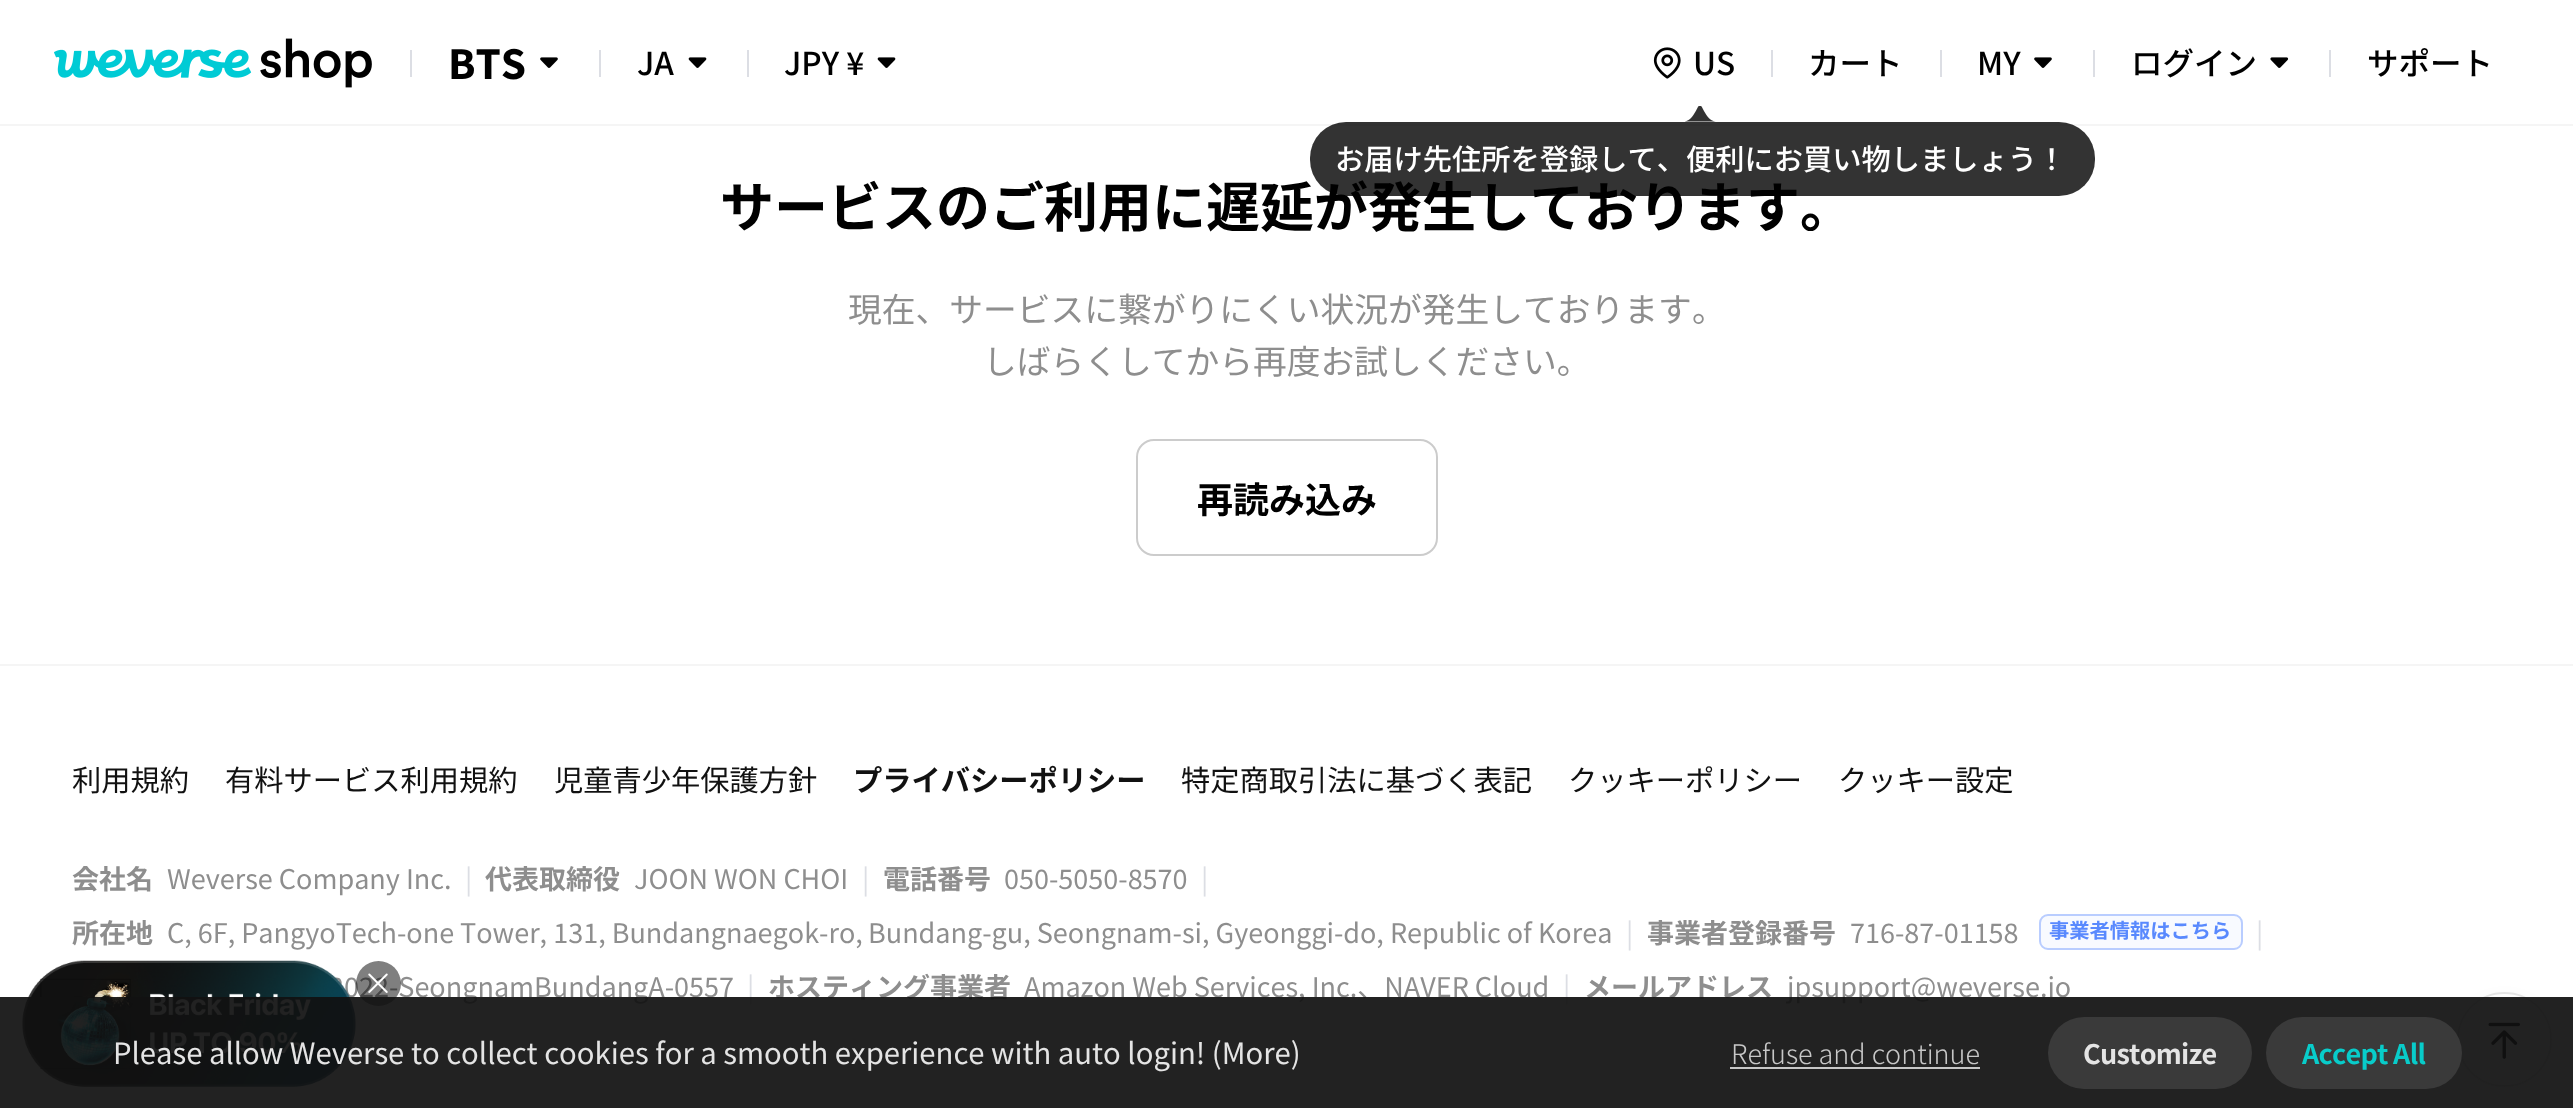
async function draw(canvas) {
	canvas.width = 2573;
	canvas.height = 1108;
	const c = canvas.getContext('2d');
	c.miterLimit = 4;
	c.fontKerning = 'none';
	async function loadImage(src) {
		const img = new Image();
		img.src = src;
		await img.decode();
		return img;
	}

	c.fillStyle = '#fff';
	c.fillRect(0, 0, 2573, 1108);
	c.fillStyle = '#f5f5f5';
	c.fillRect(0, 124, 2573, 2);
	c.drawImage(await loadImage('img1.png'), 54, 38, 318, 50);
	c.fillStyle = '#dcdee4';
	c.fillRect(410, 50, 2, 27);
	c.font = '800 40px Noto Sans JP';
	c.fillStyle = '#000';
	c.fillText('BTS', 448, 79);
	c.drawImage(await loadImage('img2.png'), 540, 57, 18, 11);
	c.fillStyle = '#dcdee4';
	c.fillRect(599, 50, 2, 27);
	c.font = '500 31.5px Noto Sans JP';
	c.fillStyle = '#000';
	c.fillText('JA', 637, 75);
	c.drawImage(await loadImage('img3.png'), 688, 57, 19, 11);
	c.fillStyle = '#dcdee4';
	c.fillRect(747, 50, 2, 27);
	c.fillStyle = '#000';
	c.fillText('JPY ¥', 784, 75);
	c.drawImage(await loadImage('img3.png'), 877, 57, 19, 11);
	c.fillStyle = '#dcdee4';
	c.fillRect(1771, 50, 2, 27);
	c.fillStyle = '#000';
	c.fillText('カート', 1808, 75);
	c.fillStyle = '#dcdee4';
	c.fillRect(1940, 50, 2, 27);
	c.fillRect(2093, 50, 2, 27);
	c.fillStyle = '#000';
	c.fillText('ログイン', 2131, 75);
	c.drawImage(await loadImage('img4.png'), 2270, 57, 19, 11);
	c.fillStyle = '#dcdee4';
	c.fillRect(2329, 50, 2, 27);
	c.fillStyle = '#000';
	c.fillText('サポート', 2367, 75);
	c.drawImage(await loadImage('img5.png'), 1653, 47, 28, 32);
	c.fillText('US', 1693, 75);
	c.font = 'bold 54px Noto Sans JP';
	c.fillText('サービスのご利用に遅延が発生しております', 720, 227);
	c.fillText('。', 1800, 227);
	c.fillStyle = '#000000cc';
	c.beginPath();
	c.roundRect(1310, 122, 785, 74, 36);
	c.fill();
	c.drawImage(await loadImage('img6.png'), 1685, 106, 31, 16);
	c.font = '500 29.25px Noto Sans JP';
	c.fillStyle = '#fff';
	c.fillText('お届け先住所を登録して、便利にお買い物しましょう！', 1335, 170);
	c.font = '500 31.5px Noto Sans JP';
	c.fillStyle = '#000';
	c.fillText('MY', 1977, 75);
	c.drawImage(await loadImage('img2.png'), 2034, 57, 18, 11);
	c.font = '33.75px Noto Sans JP';
	c.fillStyle = '#8e8e8e';
	c.fillText('現在、サービスに繋がりにくい状況が発生しております', 848, 322);
	c.fillText('。', 1692, 322);
	c.fillText('しばらくしてから再度お試しください。', 983, 374);
	c.beginPath();
	c.roundRect(1137, 440, 300, 115, 17);
	c.strokeStyle = '#ccc';
	c.lineWidth = 2;
	c.stroke();
	c.font = 'bold 36px Noto Sans JP';
	c.fillStyle = '#000';
	c.fillText('再読み込み', 1197, 513);
	c.fillStyle = '#f5f5f5';
	c.fillRect(0, 664, 2573, 2);
	c.font = '29.25px Noto Sans JP';
	c.fillStyle = '#111';
	for (const [text, x, y] of [
		['利用規約', 72, 791],
		['有料サービス利用規約', 225, 791],
		['児童青少年保護方針', 554, 791],
	]) {
		c.fillText(text, x, y);
	}
	c.font = 'bold 29.25px Noto Sans JP';
	c.fillText('プライバシーポリシー', 853, 791);
	c.font = '29.25px Noto Sans JP';
	for (const [text, x, y] of [
		['特定商取引法に基づく表記', 1181, 791],
		['クッキーポリシー', 1568, 791],
		['クッキー設定', 1838, 791],
	]) {
		c.fillText(text, x, y);
	}
	c.font = 'bold 27px Noto Sans JP';
	c.fillStyle = '#8e8e8e';
	c.fillText('会社名', 72, 889);
	c.font = '27px Noto Sans JP';
	c.fillText('Weverse Company Inc.', 167, 889);
	c.fillStyle = '#dcdee4';
	c.fillText('|', 465, 889);
	c.font = 'bold 27px Noto Sans JP';
	c.fillStyle = '#8e8e8e';
	c.fillText('代表取締役', 485, 889);
	c.font = '27px Noto Sans JP';
	c.fillText('JOON WON CHOI', 634, 889);
	c.fillStyle = '#dcdee4';
	c.fillText('|', 862, 889);
	c.font = 'bold 27px Noto Sans JP';
	c.fillStyle = '#8e8e8e';
	c.fillText('電話番号', 883, 889);
	c.font = '27px Noto Sans JP';
	c.fillText('050-5050-8570', 1004, 889);
	c.fillStyle = '#dcdee4';
	c.fillText('|', 1201, 889);
	c.font = 'bold 27px Noto Sans JP';
	c.fillStyle = '#8e8e8e';
	c.fillText('所在地', 72, 943);
	c.font = '27px Noto Sans JP';
	c.fillText('C, 6F, PangyoTech-one', 167, 943);
	c.fillText('Tower, 131, Bundangnaegok-ro,', 460, 943);
	c.fillText('Bundang-gu, Seongnam-si, Gyeonggi-do, Republic of Korea', 868, 943);
	c.fillStyle = '#dcdee4';
	c.fillText('|', 1626, 943);
	c.font = 'bold 27px Noto Sans JP';
	c.fillStyle = '#8e8e8e';
	c.fillText('事業者登録番号', 1647, 943);
	c.font = '27px Noto Sans JP';
	c.fillText('716-87-01158', 1850, 943);
	c.fillStyle = '#f8faff';
	c.beginPath();
	c.roundRect(2039, 914, 204, 36, 9);
	c.fill();
	c.beginPath();
	c.roundRect(2040, 915, 202, 34, 8);
	c.strokeStyle = '#5989fe66';
	c.stroke();
	c.font = 'bold 20.25px Noto Sans JP';
	c.fillStyle = '#5989fe';
	c.fillText('事業者情報はこちら', 2049, 938);
	c.font = '27px Noto Sans JP';
	c.fillStyle = '#dcdee4';
	c.fillText('|', 2256, 943);
	c.fillStyle = '#8e8e8e';
	c.fillText('2022-SeongnamBundangA-0557', 329, 997);
	c.fillStyle = '#dcdee4';
	c.fillText('|', 747, 997);
	c.font = 'bold 27px Noto Sans JP';
	c.fillStyle = '#8e8e8e';
	c.fillText('ホスティング事業者', 768, 997);
	c.font = '27px Noto Sans JP';
	c.fillText('Amazon Web Services, Inc.、NAVER Cloud', 1024, 997);
	c.fillStyle = '#dcdee4';
	c.fillText('|', 1563, 997);
	c.font = 'bold 27px Noto Sans JP';
	c.fillStyle = '#8e8e8e';
	c.fillText('メールアドレス', 1584, 997);
	c.font = '27px Noto Sans JP';
	c.fillText('jpsupport@weverse.io', 1787, 997);
	c.drawImage(await loadImage('img7.png'), 22, 960, 334, 127);
	c.fillStyle = '#00000080';
	c.beginPath();
	c.arc(378.5, 983.5, 22.5, 0, 2 * Math.PI);
	c.fill();
	c.drawImage(await loadImage('img8.png'), 368, 973, 20, 20);
	c.fillStyle = '#0000000f';
	c.filter = 'blur(9px)';
	c.beginPath();
	c.roundRect(2457, 1001, 95, 95, 47.5);
	c.fill();
	c.filter = 'none';
	c.fillStyle = '#fff';
	c.beginPath();
	c.arc(2504.5, 1039.5, 47.5, 0, 2 * Math.PI);
	c.fill();
	c.drawImage(await loadImage('img9.png'), 2488, 1022, 32, 37);
	c.beginPath();
	c.arc(2504.5, 1039.5, 46.5, 0, 2 * Math.PI);
	c.strokeStyle = '#0000001a';
	c.stroke();
	c.fillStyle = '#111111ed';
	c.fillRect(0, 997, 2573, 111);
	c.font = '29.25px Noto Sans JP';
	c.fillStyle = '#e4e4e4';
	c.fillText('Please allow Weverse to collect cookies for a smooth experience', 113, 1064);
	c.fillText('with auto login! (More)', 991, 1064);
	c.font = '300 27px Noto Sans JP';
	c.fillStyle = '#c8c8c8';
	c.fillText('Refuse and continue', 1731, 1064);
	c.fillRect(1730, 1067, 250, 2);
	c.fillStyle = '#3a3a3a';
	c.beginPath();
	c.roundRect(2048, 1017, 204, 72, 36);
	c.fill();
	c.letterSpacing = '-0.75px';
	c.font = 'bold 27px Noto Sans JP';
	c.fillStyle = '#e4e4e4';
	c.fillText('Customize', 2083, 1064);
	c.fillStyle = '#3a3a3a';
	c.beginPath();
	c.roundRect(2266, 1017, 196, 72, 36);
	c.fill();
	c.fillStyle = '#08ccca';
	c.fillText('Accept All', 2302, 1064);
}

draw(document.querySelector('canvas'));
